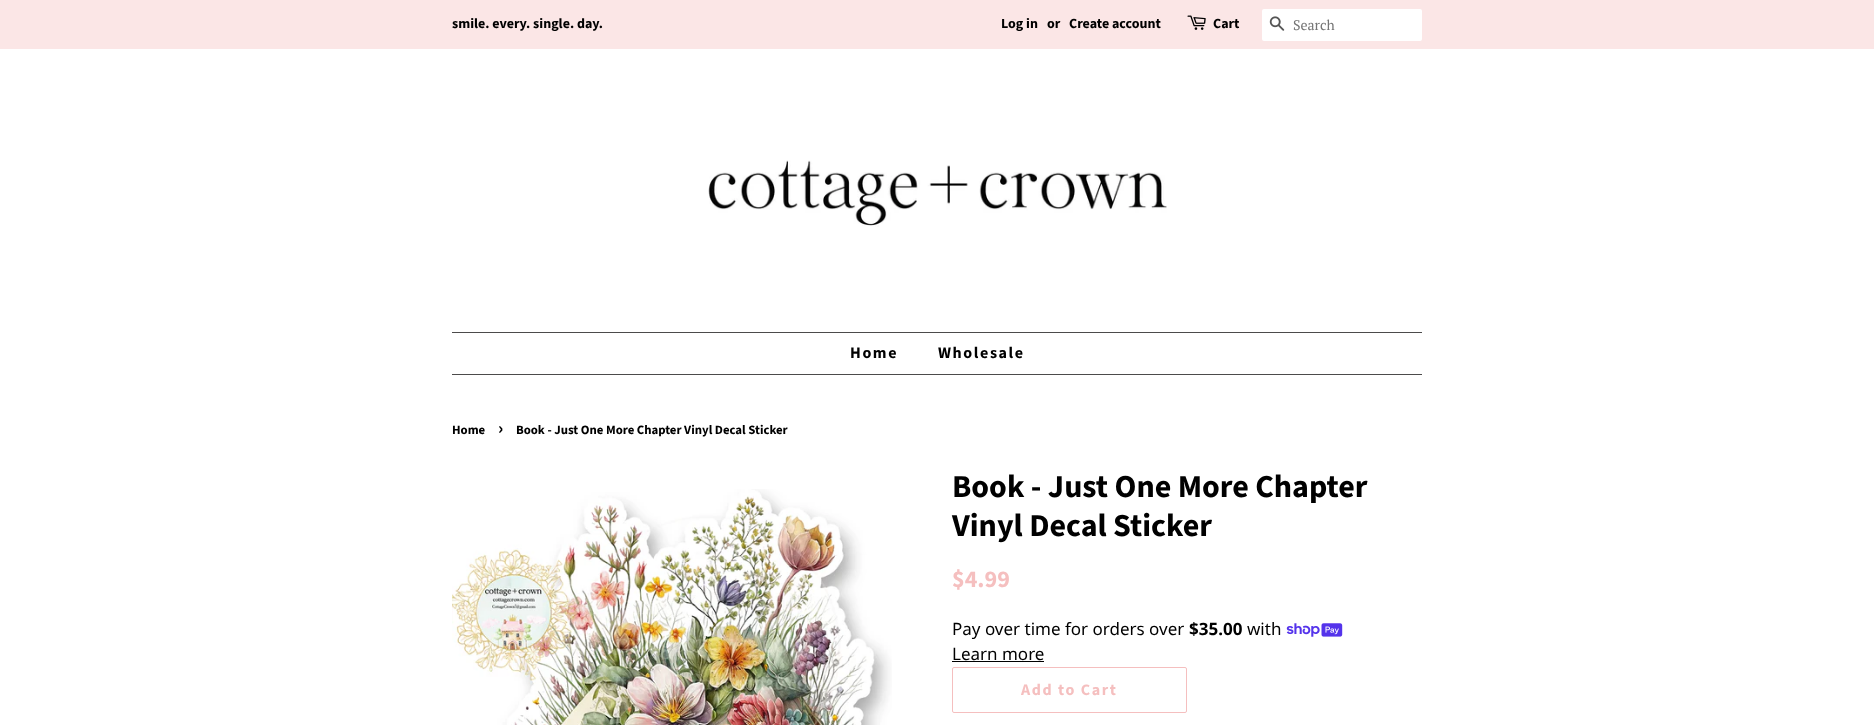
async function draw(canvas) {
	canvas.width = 1874;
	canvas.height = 725;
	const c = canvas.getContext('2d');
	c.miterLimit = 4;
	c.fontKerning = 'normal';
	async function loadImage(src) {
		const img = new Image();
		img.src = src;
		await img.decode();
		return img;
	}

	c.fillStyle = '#fff';
	c.fillRect(0, 0, 1874, 725);
	c.fillStyle = '#fbe6e6';
	c.fillRect(0, 0, 1874, 49);
	c.font = 'bold 14px Source Sans Pro';
	c.fillStyle = '#000';
	for (const [text, x, y] of [
		['smile. every. single. day.', 452, 28],
		['Log in', 1001, 28],
		['or', 1047, 28],
		['Create account', 1069, 28],
	]) {
		c.fillText(text, x, y);
	}
	c.drawImage(await loadImage('img1.png'), 1187, 15, 19, 15);
	c.fillText('Cart', 1213, 28);
	c.fillStyle = '#fff';
	c.beginPath();
	c.roundRect(1262, 9, 160, 32, 2);
	c.fill();
	c.drawImage(await loadImage('img2.png'), 1269, 16, 16, 15);
	c.font = '14px PT Serif';
	c.fillStyle = '#757575';
	c.fillText('Search', 1293, 30);
	c.drawImage(await loadImage('img3.png'), 708, 160, 459, 67);
	c.fillStyle = '#4c4b4b';
	c.fillRect(452, 332, 970, 1);
	c.fillRect(452, 374, 970, 1);
	c.letterSpacing = '1.6px';
	c.font = 'bold 16px Source Sans Pro';
	c.fillStyle = '#000';
	c.fillText('Home', 850, 358);
	c.fillText('Wholesale', 938, 358);
	c.letterSpacing = '0px';
	c.font = 'bold 12.75px Source Sans Pro';
	c.fillText('Home', 452, 434);
	c.font = 'bold 18px Source Sans Pro';
	c.fillText('›', 498, 434);
	c.font = 'bold 12.75px Source Sans Pro';
	c.fillText('Book - Just One More Chapter Vinyl Decal Sticker', 516, 434);
	c.drawImage(await loadImage('img4.png'), 452, 489, 440, 236);
	c.font = 'bold 32px Source Sans Pro';
	c.fillText('Book - Just One More Chapter', 952, 497);
	c.fillText('Vinyl Decal Sticker', 952, 536);
	c.font = 'bold 24px Source Sans Pro';
	c.fillStyle = '#f5bfbf';
	c.fillText('$4.99', 952, 587);
	c.font = '17px Noto Sans';
	c.fillStyle = '#000';
	c.fillText('Pay over time for orders over', 952, 635);
	c.font = 'bold 17px Noto Sans';
	c.fillText('$35.00', 1189, 635);
	c.font = '17px Noto Sans';
	c.fillText('with', 1247, 635);
	c.drawImage(await loadImage('img5.png'), 1286, 623, 57, 14);
	c.fillText('Learn more', 952, 660);
	c.fillRect(952, 661, 92, 1);
	c.beginPath();
	c.roundRect(952.5, 667.5, 234, 45, 1.5);
	c.strokeStyle = '#f5bfbf';
	c.stroke();
	c.letterSpacing = '1.6px';
	c.font = 'bold 16px Source Sans Pro';
	c.fillStyle = '#f5bfbf';
	c.fillText('Add to Cart', 1021, 695);
}

draw(document.querySelector('canvas'));
